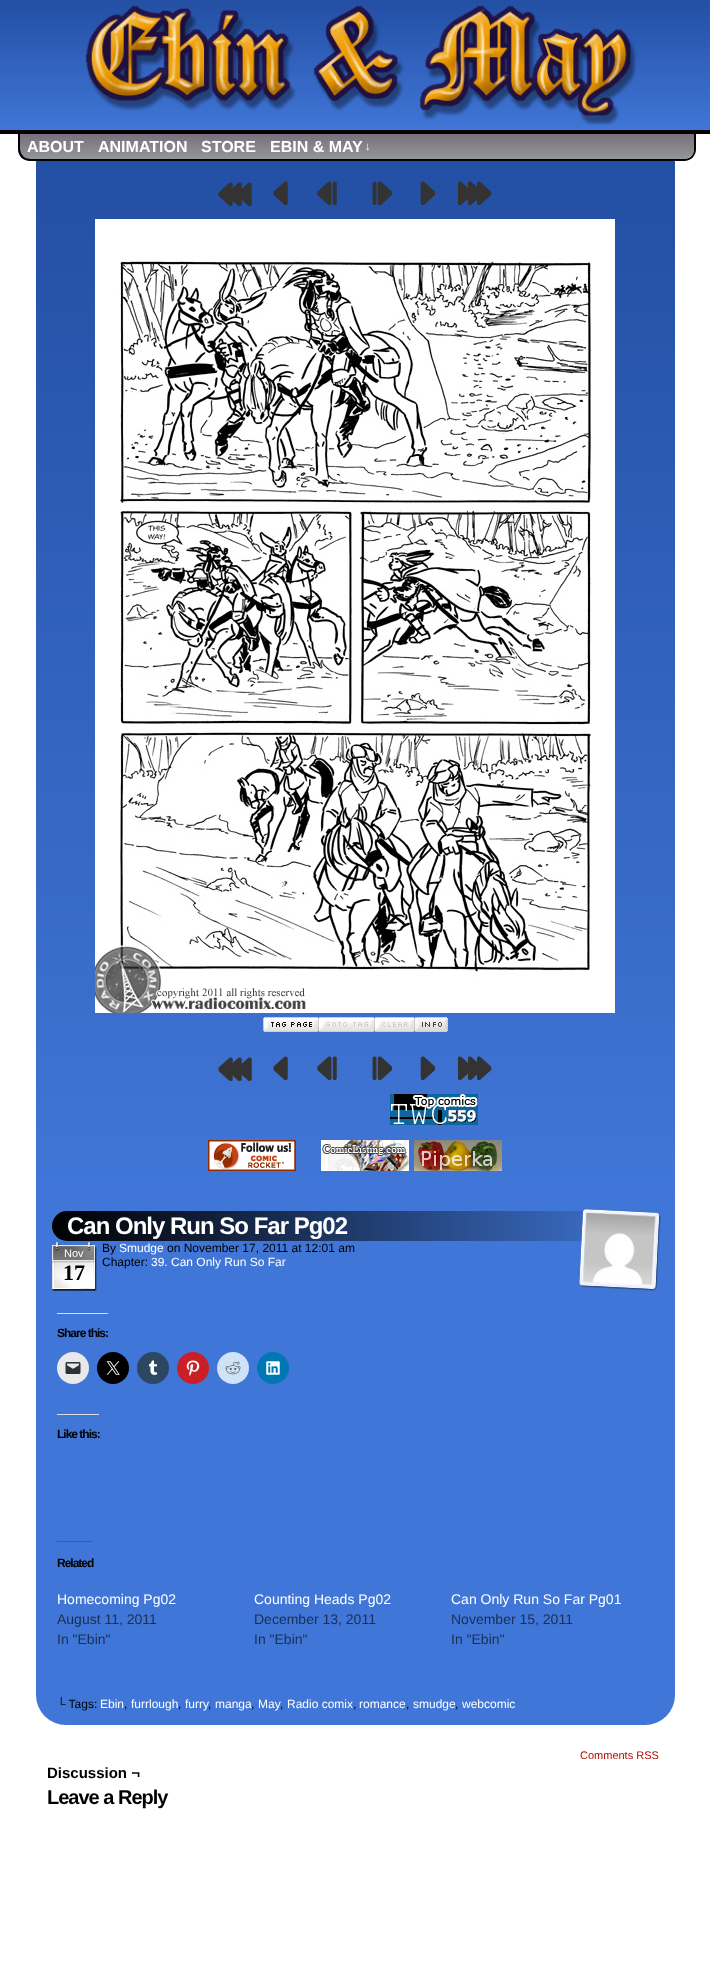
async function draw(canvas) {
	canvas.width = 710;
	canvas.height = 1963;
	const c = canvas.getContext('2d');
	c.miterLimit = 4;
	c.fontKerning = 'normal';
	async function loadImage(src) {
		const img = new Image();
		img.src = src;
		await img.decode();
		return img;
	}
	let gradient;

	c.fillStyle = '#fff';
	c.fillRect(0, 0, 710, 1963);
	gradient = c.createLinearGradient(355, 0, 355, 130);
	gradient.addColorStop(0, '#234fa4');
	gradient.addColorStop(1, '#4076d7');
	c.fillStyle = gradient;
	c.fillRect(0, 0, 710, 130);
	c.fillStyle = '#000';
	c.fillRect(0, 130, 710, 4);
	c.drawImage(await loadImage('img1.png'), 85, 6, 552, 119);
	c.beginPath();
	c.roundRect(18, 134, 674, 25, [0, 0, 12, 12]);
	c.fill();
	gradient = c.createLinearGradient(357, 134, 357, 159);
	gradient.addColorStop(0, '#796f7c');
	gradient.addColorStop(1, '#939798');
	c.fillStyle = gradient;
	c.beginPath();
	c.roundRect(20, 134, 674, 25, [0, 0, 10, 10]);
	c.fill();
	c.fillStyle = '#000';
	c.beginPath();
	c.moveTo(18, 134);
	c.lineTo(696, 134);
	c.lineTo(696, 149);
	c.bezierCurveTo(696, 156, 691, 161, 684, 161);
	c.lineTo(30, 161);
	c.bezierCurveTo(23, 161, 18, 156, 18, 149);
	c.closePath();
	c.moveTo(20, 134);
	c.lineTo(694, 134);
	c.lineTo(694, 149);
	c.bezierCurveTo(694, 155, 690, 159, 684, 159);
	c.lineTo(30, 159);
	c.bezierCurveTo(24, 159, 20, 155, 20, 149);
	c.closePath();
	c.fill('evenodd');
	c.font = 'bold 16px Liberation Sans';
	c.fillStyle = '#fff';
	for (const [text, x, y] of [
		['ABOUT', 27, 152],
		['ANIMATION', 98, 152],
		['STORE', 201, 152],
		['EBIN & MAY', 270, 152],
	]) {
		c.fillText(text, x, y);
	}
	c.font = 'bold 11px Liberation Sans';
	c.fillText('↓', 365, 150);
	gradient = c.createLinearGradient(355, 161, 356, 1195);
	gradient.addColorStop(0, '#234fa4');
	gradient.addColorStop(1, '#4076d7');
	c.fillStyle = gradient;
	c.fillRect(36, 161, 639, 1034);
	c.drawImage(await loadImage('img2.png'), 218, 182, 34, 24);
	c.drawImage(await loadImage('img3.png'), 273, 181, 15, 24);
	c.drawImage(await loadImage('img4.png'), 317, 181, 20, 24);
	c.drawImage(await loadImage('img5.png'), 372, 181, 20, 24);
	c.drawImage(await loadImage('img6.png'), 420, 181, 15, 24);
	c.drawImage(await loadImage('img7.png'), 458, 181, 34, 24);
	c.drawImage(await loadImage('img8.png'), 95, 219, 520, 794);
	c.drawImage(await loadImage('img9.png'), 263, 1017, 56, 15);
	c.drawImage(await loadImage('img10.png'), 319, 1017, 56, 15);
	c.drawImage(await loadImage('img11.png'), 375, 1017, 40, 15);
	c.drawImage(await loadImage('img12.png'), 415, 1017, 33, 15);
	c.drawImage(await loadImage('img13.png'), 218, 1057, 34, 24);
	c.drawImage(await loadImage('img14.png'), 273, 1056, 15, 24);
	c.drawImage(await loadImage('img15.png'), 317, 1056, 20, 24);
	c.drawImage(await loadImage('img16.png'), 372, 1056, 20, 24);
	c.drawImage(await loadImage('img17.png'), 420, 1056, 15, 24);
	c.drawImage(await loadImage('img18.png'), 458, 1056, 34, 24);
	c.drawImage(await loadImage('img19.png'), 390, 1094, 88, 31);
	c.drawImage(await loadImage('img20.png'), 208, 1140, 88, 31);
	c.drawImage(await loadImage('img21.png'), 321, 1140, 88, 31);
	c.drawImage(await loadImage('img22.png'), 414, 1140, 88, 31);
	c.fillStyle = '#4076d7';
	c.beginPath();
	c.roundRect(36, 1195, 639, 530, [0, 0, 30, 30]);
	c.fill();
	gradient = c.createLinearGradient(52, 1226, 659, 1226);
	gradient.addColorStop(0, '#000');
	gradient.addColorStop(1, '#4076d7');
	c.fillStyle = gradient;
	c.beginPath();
	c.roundRect(52, 1211, 607, 30, [15, 0, 0, 15]);
	c.fill();
	c.letterSpacing = '-1px';
	c.font = 'bold 24px Liberation Sans';
	c.fillStyle = '#fff';
	c.fillText('Can Only Run So Far Pg02', 67, 1234);
	c.drawImage(await loadImage('img23.png'), 52, 1242, 45, 49);
	c.letterSpacing = '0px';
	c.font = '11px Liberation Sans';
	c.fillText('Nov', 64, 1257);
	c.font = 'bold 22px Liberation Serif';
	c.fillStyle = '#000';
	c.fillText('17', 63, 1280);
	c.font = '12px Liberation Sans';
	c.fillText('By', 102, 1252);
	c.fillStyle = '#fff';
	c.fillText('Smudge', 119, 1252);
	c.fillStyle = '#000';
	c.fillText('on November 17, 2011 at 12:01 am', 167, 1252);
	c.fillText('Chapter:', 102, 1266);
	c.fillStyle = '#fff';
	c.fillText('39. Can Only Run So Far', 151, 1266);
	c.drawImage(await loadImage('img24.png'), 579, 1209, 82, 82);
	c.fillStyle = '#dcdcde';
	c.fillRect(57, 1313, 51, 1);
	c.letterSpacing = '-1px';
	c.font = 'bold 12px Liberation Sans';
	c.fillStyle = '#000';
	c.fillText('Share this:', 57, 1337);
	c.fillStyle = '#e9e9e9';
	c.beginPath();
	c.arc(73, 1368, 16, 0, 2 * Math.PI);
	c.fill();
	c.drawImage(await loadImage('img25.png'), 65, 1362, 16, 12);
	c.fillStyle = '#000';
	c.beginPath();
	c.arc(113, 1368, 16, 0, 2 * Math.PI);
	c.fill();
	c.drawImage(await loadImage('img26.png'), 106, 1361, 14, 14);
	c.fillStyle = '#2c4762';
	c.beginPath();
	c.arc(153, 1368, 16, 0, 2 * Math.PI);
	c.fill();
	c.drawImage(await loadImage('img27.png'), 148, 1360, 10, 15);
	c.fillStyle = '#ca1f27';
	c.beginPath();
	c.arc(193, 1368, 16, 0, 2 * Math.PI);
	c.fill();
	c.drawImage(await loadImage('img28.png'), 186, 1360, 14, 16);
	c.fillStyle = '#cee3f8';
	c.beginPath();
	c.arc(233, 1368, 16, 0, 2 * Math.PI);
	c.fill();
	c.drawImage(await loadImage('img29.png'), 225, 1361, 16, 14);
	c.fillStyle = '#0077b5';
	c.beginPath();
	c.arc(273, 1368, 16, 0, 2 * Math.PI);
	c.fill();
	c.drawImage(await loadImage('img30.png'), 266, 1361, 14, 14);
	c.fillStyle = '#dcdcde';
	c.fillRect(57, 1414, 42, 1);
	c.fillStyle = '#000';
	c.fillText('Like this:', 57, 1438);
	c.fillStyle = '#335eac';
	c.fillRect(57, 1541, 36, 1);
	c.fillStyle = '#000';
	c.fillText('Related', 57, 1567);
	c.letterSpacing = '0px';
	c.font = '14px Liberation Sans';
	c.fillStyle = '#fff';
	c.fillText('Homecoming Pg02', 57, 1604);
	c.fillStyle = '#1a2f56';
	c.fillText('August 11, 2011', 57, 1624);
	c.fillText('In "Ebin"', 57, 1644);
	c.fillStyle = '#fff';
	c.fillText('Counting Heads Pg02', 254, 1604);
	c.fillStyle = '#1a2f56';
	c.fillText('December 13, 2011', 254, 1624);
	c.fillText('In "Ebin"', 254, 1644);
	c.fillStyle = '#fff';
	c.fillText('Can Only Run So Far Pg01', 451, 1604);
	c.fillStyle = '#1a2f56';
	c.fillText('November 15, 2011', 451, 1624);
	c.fillText('In "Ebin"', 451, 1644);
	c.font = '12px Liberation Sans';
	c.fillStyle = '#000';
	c.fillText('└ Tags:', 57, 1708);
	c.fillStyle = '#fff';
	c.fillText('Ebin', 100, 1708);
	c.fillStyle = '#000';
	c.fillText(',', 124, 1708);
	c.fillStyle = '#fff';
	c.fillText('furrlough', 131, 1708);
	c.fillStyle = '#000';
	c.fillText(',', 178, 1708);
	c.fillStyle = '#fff';
	c.fillText('furry', 185, 1708);
	c.fillStyle = '#000';
	c.fillText(',', 208, 1708);
	c.fillStyle = '#fff';
	c.fillText('manga', 215, 1708);
	c.fillStyle = '#000';
	c.fillText(',', 251, 1708);
	c.fillStyle = '#fff';
	c.fillText('May', 258, 1708);
	c.fillStyle = '#000';
	c.fillText(',', 280, 1708);
	c.fillStyle = '#fff';
	c.fillText('Radio comix', 287, 1708);
	c.fillStyle = '#000';
	c.fillText(',', 353, 1708);
	c.fillStyle = '#fff';
	c.fillText('romance', 359, 1708);
	c.fillStyle = '#000';
	c.fillText(',', 406, 1708);
	c.fillStyle = '#fff';
	c.fillText('smudge', 413, 1708);
	c.fillStyle = '#000';
	c.fillText(',', 455, 1708);
	c.fillStyle = '#fff';
	c.fillText('webcomic', 462, 1708);
	c.font = '11px Liberation Sans';
	c.fillStyle = '#b00b00';
	c.fillText('Comments RSS', 580, 1759);
	c.font = 'bold 15px Liberation Sans';
	c.fillStyle = '#000';
	c.fillText('Discussion ¬', 47, 1778);
	c.letterSpacing = '-1px';
	c.font = 'bold 20px Liberation Sans';
	c.fillText('Leave a Reply', 47, 1804);
}

draw(document.querySelector('canvas'));
